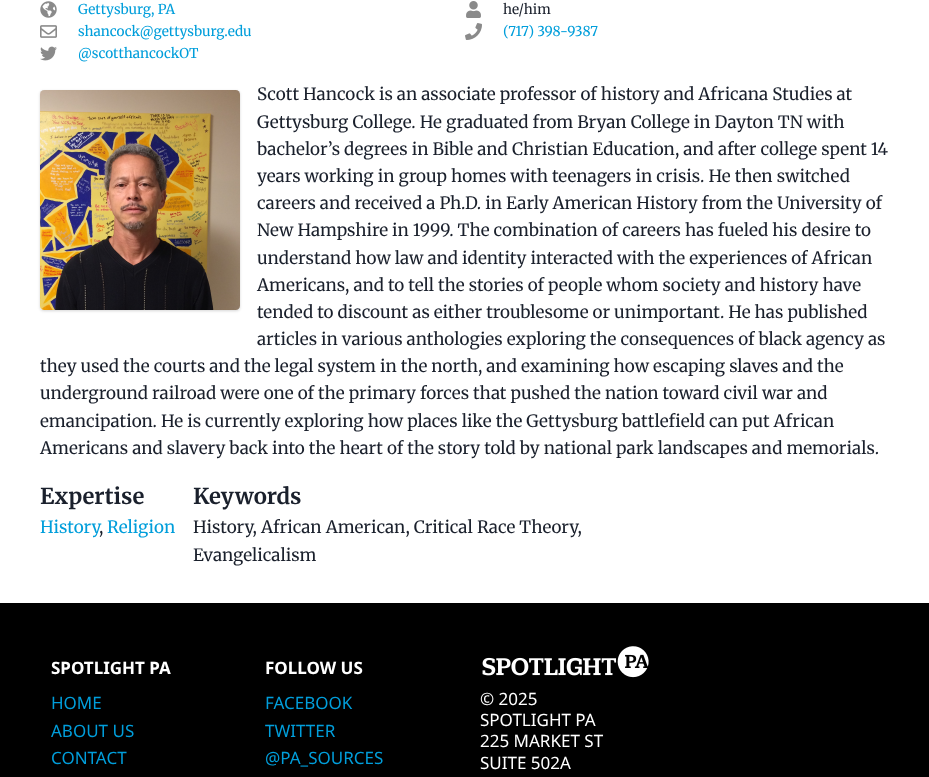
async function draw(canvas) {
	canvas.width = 929;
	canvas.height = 777;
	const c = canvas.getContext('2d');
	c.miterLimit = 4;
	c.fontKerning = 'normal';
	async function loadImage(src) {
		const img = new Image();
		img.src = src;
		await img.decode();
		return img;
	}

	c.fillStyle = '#fff';
	c.fillRect(0, 0, 929, 777);
	c.drawImage(await loadImage('img1.png'), 40, 1, 17, 17);
	c.font = '13.6px Merriweather';
	c.fillStyle = '#009edb';
	c.fillText('Gettysburg, PA', 78, 14);
	c.drawImage(await loadImage('img2.png'), 466, 1, 15, 17);
	c.fillStyle = '#1a202c';
	c.fillText('he/him', 503, 14);
	c.drawImage(await loadImage('img3.png'), 40, 25, 17, 13);
	c.fillStyle = '#009edb';
	c.fillText('shancock@gettysburg.edu', 78, 36);
	c.drawImage(await loadImage('img4.png'), 465, 23, 17, 17);
	c.fillText('(717) 398-9387', 503, 36);
	c.drawImage(await loadImage('img5.png'), 40, 46, 17, 15);
	c.fillText('@scotthancockOT', 78, 58);
	c.fillStyle = '#0000000f';
	c.filter = 'blur(1px)';
	c.beginPath();
	c.roundRect(40, 91, 200, 220, 4);
	c.fill();
	c.filter = 'none';
	c.fillStyle = '#0000001a';
	c.filter = 'blur(1.5px)';
	c.beginPath();
	c.roundRect(40, 91, 200, 220, 4);
	c.fill();
	c.filter = 'none';
	c.fillStyle = '#efefef';
	c.beginPath();
	c.roundRect(40, 90, 200, 220, 4);
	c.fill();
	c.drawImage(await loadImage('img6.png'), 40, 90, 200, 220);
	c.font = '17px Merriweather';
	c.fillStyle = '#1a202c';
	for (const [text, x, y] of [
		['Scott Hancock is an associate professor of history and Africana Studies at', 257, 100],
		['Gettysburg College. He graduated from Bryan College in Dayton TN with', 257, 128],
		['bachelor’s degrees in Bible and Christian Education, and after college spent 14', 257, 155],
		['years working in group homes with teenagers in crisis. He then switched', 257, 182],
		['careers and received a Ph.D. in Early American History from the University of', 257, 209],
		['New Hampshire in 1999. The combination of careers has fueled his desire to', 257, 236],
		['understand how law and identity interacted with the experiences of African', 257, 264],
		['Americans, and to tell the stories of people whom society and history have', 257, 291],
		['tended to discount as either troublesome or unimportant. He has published', 257, 318],
		['articles in various anthologies exploring the consequences of black agency as', 257, 345],
		['they used the courts and the legal system in the north, and examining how escaping slaves and the', 40, 372],
		['underground railroad were one of the primary forces that pushed the nation toward civil war and', 40, 399],
		['emancipation. He is currently exploring how places like the Gettysburg battlefield can put African', 40, 427],
		['Americans and slavery back into the heart of the story told by national park landscapes and memorials.', 40, 454],
	]) {
		c.fillText(text, x, y);
	}
	c.font = 'bold 22px Merriweather';
	c.fillText('Expertise', 40, 504);
	c.font = '17px Merriweather';
	c.fillStyle = '#009edb';
	c.fillText('History', 40, 533);
	c.fillText('Religion', 107, 533);
	c.fillStyle = '#1a202c';
	c.fillText(',', 99, 533);
	c.font = 'bold 22px Merriweather';
	c.fillText('Keywords', 193, 504);
	c.font = '17px Merriweather';
	c.fillText('History, African American, Critical Race Theory,', 193, 533);
	c.fillText('Evangelicalism', 193, 561);
	c.fillStyle = '#000';
	c.fillRect(0, 603, 929, 174);
	c.font = 'bold 17px Noto Sans';
	c.fillStyle = '#fff';
	c.fillText('SPOTLIGHT PA', 51, 674);
	c.font = '17px Noto Sans';
	c.fillStyle = '#009edb';
	for (const [text, x, y] of [
		['HOME', 51, 709],
		['ABOUT US', 51, 737],
		['CONTACT', 51, 764],
	]) {
		c.fillText(text, x, y);
	}
	c.font = 'bold 17px Noto Sans';
	c.fillStyle = '#fff';
	c.fillText('FOLLOW US', 265, 674);
	c.font = '17px Noto Sans';
	c.fillStyle = '#009edb';
	for (const [text, x, y] of [
		['FACEBOOK', 265, 709],
		['TWITTER', 265, 737],
		['@PA_SOURCES', 265, 764],
	]) {
		c.fillText(text, x, y);
	}
	c.drawImage(await loadImage('img7.png'), 482, 646, 167, 32);
	c.fillStyle = '#fff';
	for (const [text, x, y] of [
		['© 2025', 480, 705],
		['SPOTLIGHT PA', 480, 726],
		['225 MARKET ST', 480, 747],
		['SUITE 502A', 480, 769],
	]) {
		c.fillText(text, x, y);
	}
}

draw(document.querySelector('canvas'));
